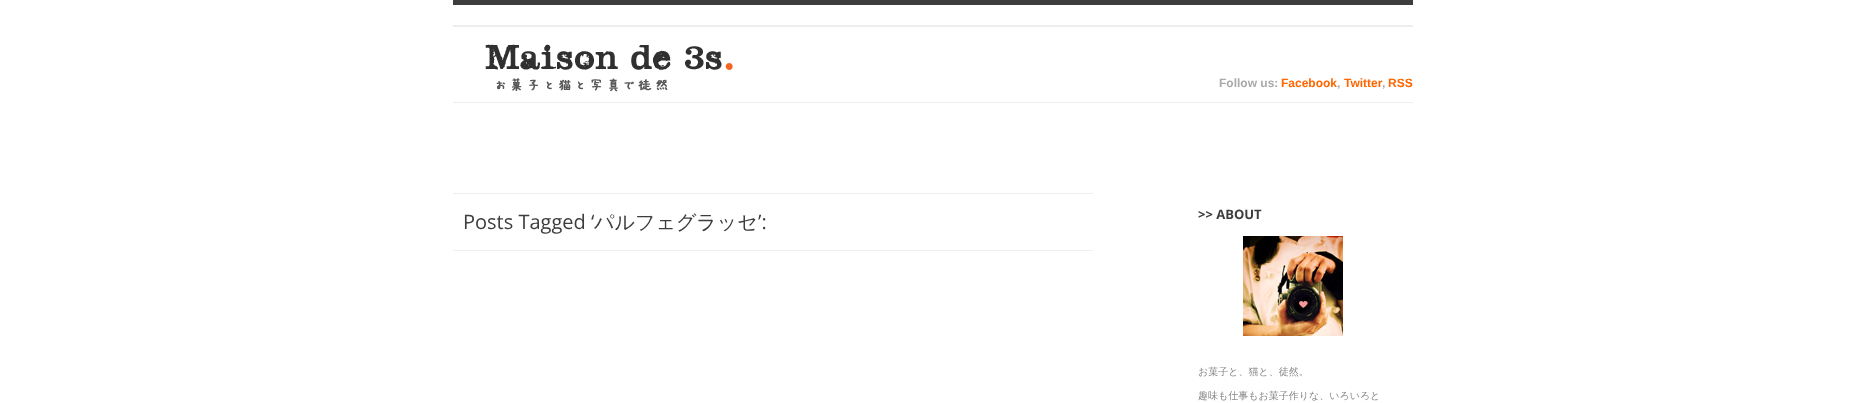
async function draw(canvas) {
	canvas.width = 1866;
	canvas.height = 403;
	const c = canvas.getContext('2d');
	c.miterLimit = 4;
	c.fontKerning = 'normal';
	async function loadImage(src) {
		const img = new Image();
		img.src = src;
		await img.decode();
		return img;
	}

	c.fillStyle = '#fff';
	c.fillRect(0, 0, 1866, 403);
	for (const [x, y, w, h, color] of [
		[453, 0, 960, 5, '#3d3d3d'],
		[453, 25, 960, 2, '#eee'],
		[453, 102, 960, 1, '#eee'],
	]) {
		c.fillStyle = color;
		c.fillRect(x, y, w, h);
	}
	c.drawImage(await loadImage('img1.png'), 485, 44, 249, 48);
	c.font = 'bold 12px Liberation Sans';
	c.fillStyle = '#aaa';
	c.fillText('Follow us:', 1219, 87);
	c.fillStyle = '#f60';
	c.fillText('Facebook', 1281, 87);
	c.fillStyle = '#aaa';
	c.fillText(',', 1337, 87);
	c.fillStyle = '#f60';
	c.fillText('Twitter', 1344, 87);
	c.fillStyle = '#aaa';
	c.fillText(',', 1382, 87);
	c.fillStyle = '#f60';
	c.fillText('RSS', 1388, 87);
	c.fillStyle = '#eee';
	c.fillRect(453, 193, 640, 1);
	c.fillRect(453, 250, 640, 1);
	c.font = '20px Open Sans';
	c.fillStyle = '#3d3d3d';
	c.fillText('Posts Tagged ‘', 463, 229);
	c.font = '500 20px WenQuanYi Zen Hei';
	c.fillText('パルフェグラッセ', 594, 229);
	c.font = '20px Open Sans';
	c.fillText('’:', 758, 229);
	c.font = 'bold 13px Open Sans';
	c.fillText('>> ABOUT', 1198, 219);
	c.drawImage(await loadImage('img2.png'), 1243, 236, 100, 100);
	c.font = '500 10px WenQuanYi Zen Hei';
	c.fillStyle = '#888';
	c.fillText('お菓子と、猫と、徒然。', 1198, 375);
	c.fillText('趣味も仕事もお菓子作りな、いろいろと', 1198, 399);
}

draw(document.querySelector('canvas'));
